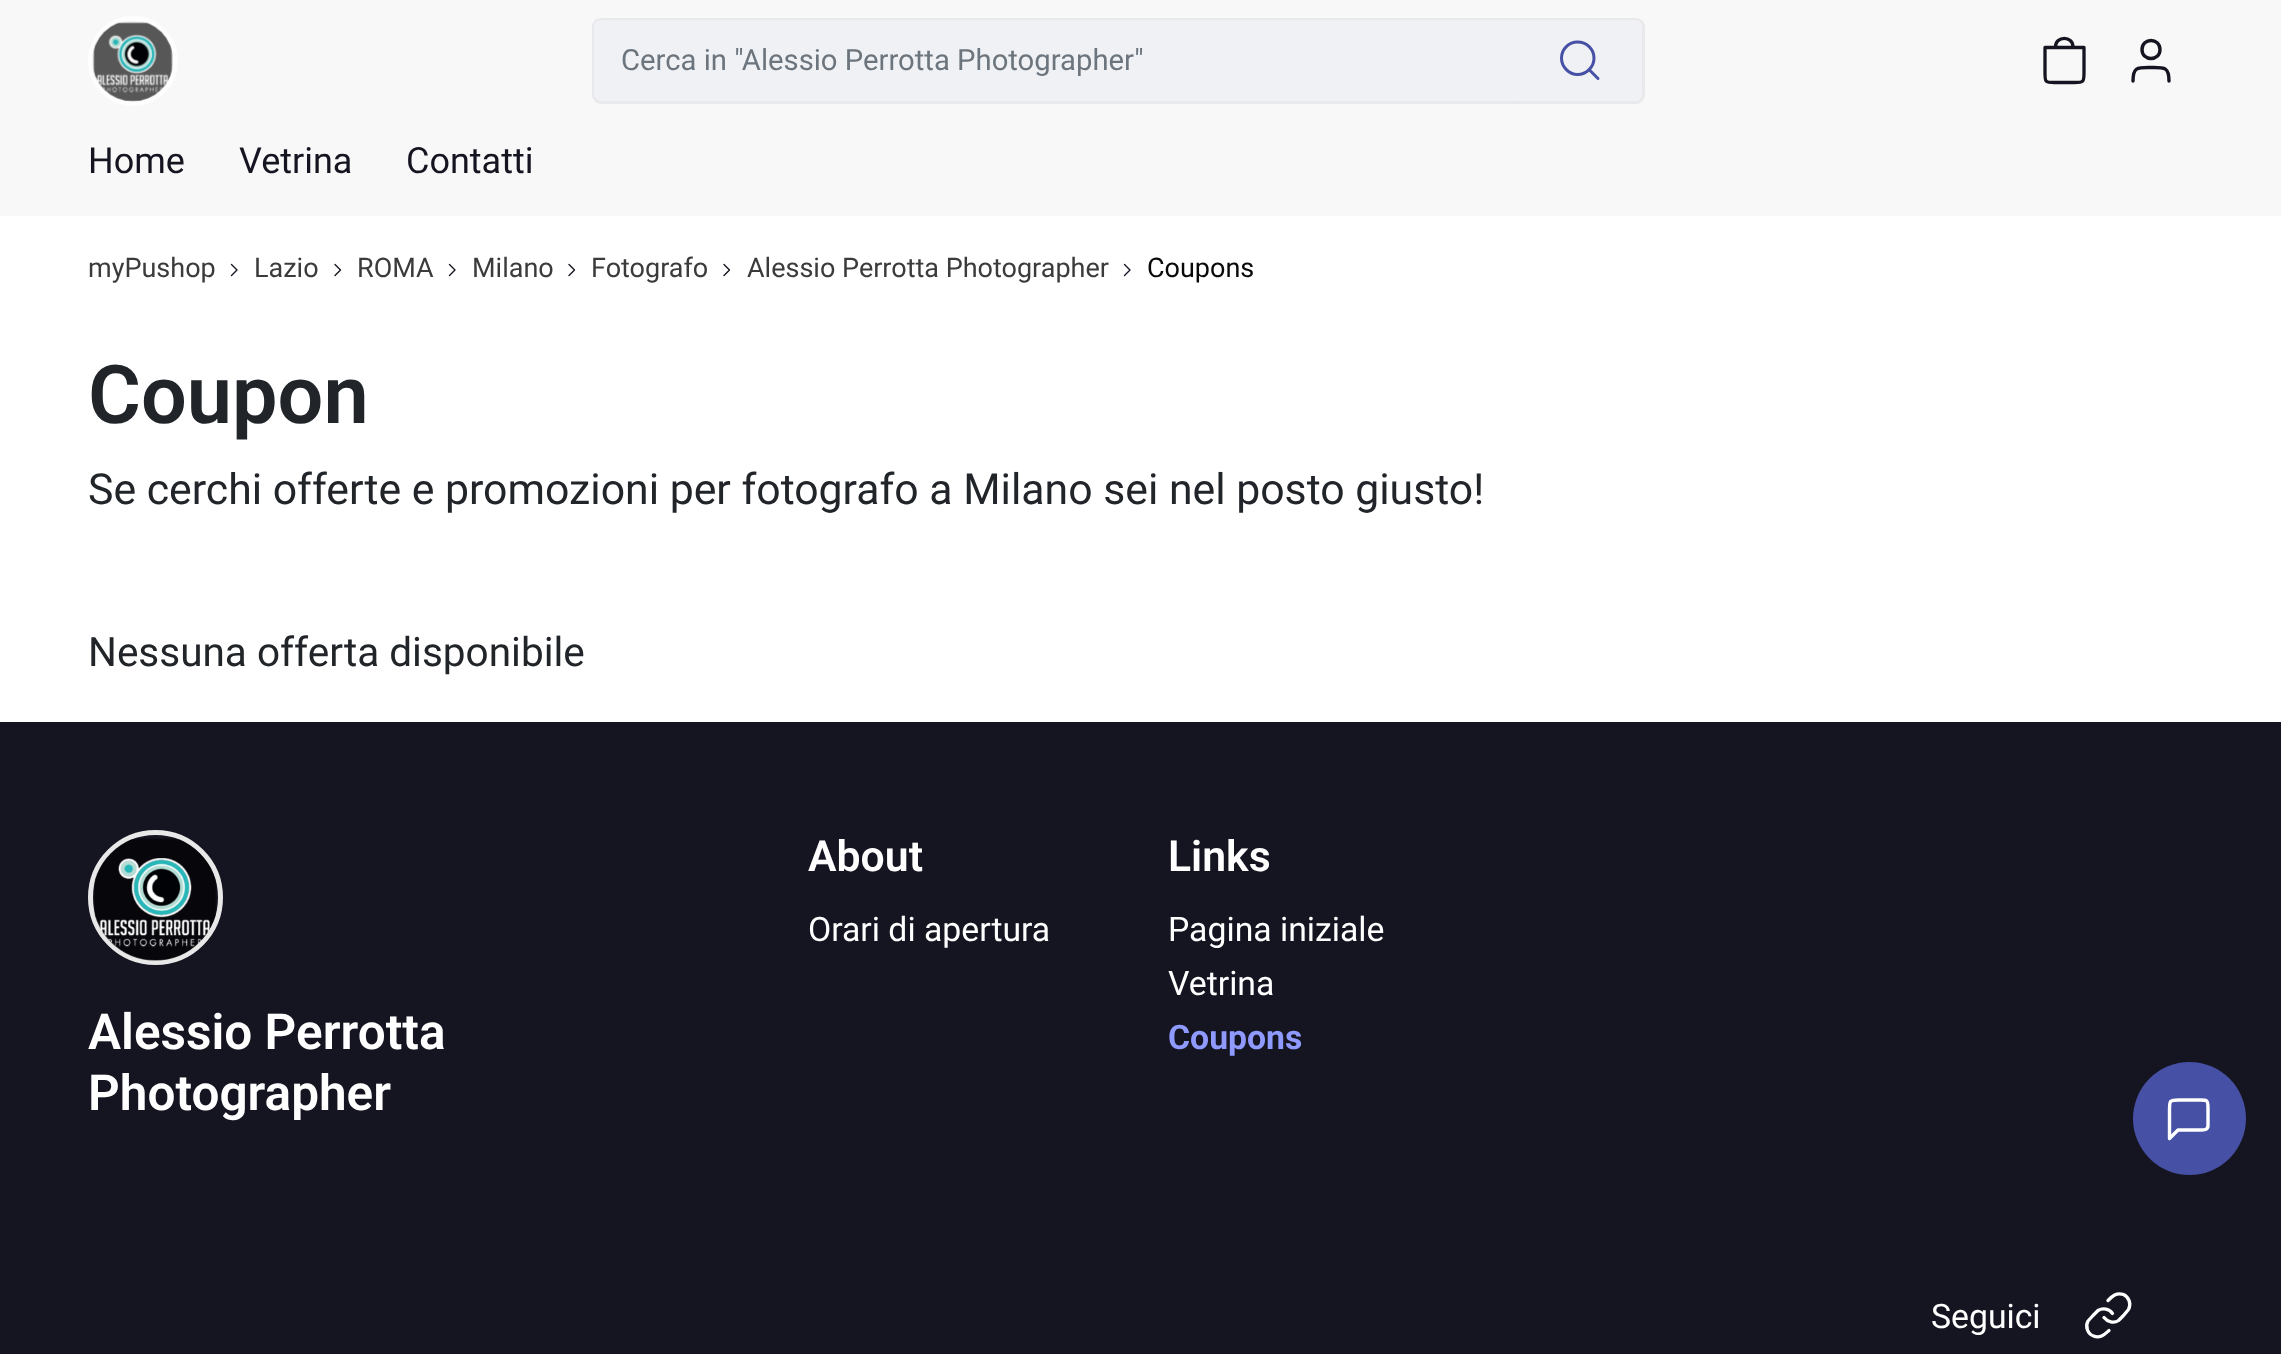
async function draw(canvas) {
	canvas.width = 2281;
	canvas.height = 1354;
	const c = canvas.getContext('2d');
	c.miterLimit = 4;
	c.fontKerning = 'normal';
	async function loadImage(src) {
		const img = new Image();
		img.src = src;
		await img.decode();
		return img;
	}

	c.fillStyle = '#fff';
	c.fillRect(0, 0, 2281, 1354);
	c.fillStyle = '#f8f8f8';
	c.fillRect(0, 0, 2281, 216);
	c.beginPath();
	c.arc(133, 61, 42.5, 0, 2 * Math.PI);
	c.strokeStyle = '#fefefe';
	c.lineWidth = 5;
	c.stroke();
	c.drawImage(await loadImage('img1.png'), 92, 21, 81, 81);
	c.fillStyle = '#f0f1f5';
	c.beginPath();
	c.roundRect(592, 18, 927, 86, [9, 0, 0, 9]);
	c.fill();
	c.fillStyle = '#e4e4e499';
	c.beginPath();
	c.moveTo(601, 18);
	c.lineTo(1519, 18);
	c.lineTo(1519, 104);
	c.lineTo(601, 104);
	c.bezierCurveTo(596, 104, 592, 99, 592, 94);
	c.lineTo(592, 27);
	c.bezierCurveTo(592, 22, 596, 18, 601, 18);
	c.closePath();
	c.moveTo(601, 20);
	c.lineTo(1519, 20);
	c.lineTo(1519, 101);
	c.lineTo(601, 101);
	c.bezierCurveTo(597, 101, 594, 98, 594, 94);
	c.lineTo(594, 27);
	c.bezierCurveTo(594, 23, 597, 20, 601, 20);
	c.closePath();
	c.fill('evenodd');
	c.font = '29.25px Roboto';
	c.fillStyle = '#6c757d';
	c.fillText('Cerca in "Alessio Perrotta Photographer"', 621, 70);
	c.fillStyle = '#f0f1f5';
	c.beginPath();
	c.roundRect(1517, 18, 128, 86, [0, 9, 9, 0]);
	c.fill();
	c.fillStyle = '#e4e4e499';
	c.beginPath();
	c.moveTo(1516, 18);
	c.lineTo(1636, 18);
	c.bezierCurveTo(1641, 18, 1645, 22, 1645, 27);
	c.lineTo(1645, 94);
	c.bezierCurveTo(1645, 99, 1641, 104, 1636, 104);
	c.lineTo(1516, 104);
	c.closePath();
	c.moveTo(1516, 20);
	c.lineTo(1636, 20);
	c.bezierCurveTo(1639, 20, 1642, 23, 1642, 27);
	c.lineTo(1642, 94);
	c.bezierCurveTo(1642, 98, 1639, 101, 1636, 101);
	c.lineTo(1516, 101);
	c.closePath();
	c.fill('evenodd');
	c.beginPath();
	c.moveTo(1598, 78.5);
	c.lineTo(1589, 69.5);
	c.moveTo(1594, 58);
	c.bezierCurveTo(1594, 67, 1586.5, 74.5, 1577.5, 74.5);
	c.bezierCurveTo(1569, 74.5, 1561.5, 67, 1561.5, 58);
	c.bezierCurveTo(1561.5, 49, 1569, 42, 1577.5, 42);
	c.bezierCurveTo(1586.5, 42, 1594, 49, 1594, 58);
	c.closePath();
	c.strokeStyle = '#4650a5';
	c.lineWidth = 3;
	c.lineCap = 'round';
	c.lineJoin = 'round';
	c.stroke();
	c.beginPath();
	c.moveTo(2073, 47);
	c.bezierCurveTo(2073, 35.5, 2055.5, 35.5, 2055.5, 47);
	c.moveTo(2045, 47.5);
	c.lineTo(2045, 73);
	c.bezierCurveTo(2045, 82, 2045, 82.5, 2054.5, 82.5);
	c.lineTo(2074.5, 82.5);
	c.bezierCurveTo(2083.5, 82.5, 2084, 82, 2084, 73);
	c.lineTo(2084, 47.5);
	c.closePath();
	c.strokeStyle = '#151522';
	c.lineWidth = 3.3;
	c.stroke();
	c.beginPath();
	c.moveTo(2169, 81);
	c.bezierCurveTo(2169, 66.5, 2164, 67.5, 2151, 67.5);
	c.bezierCurveTo(2138, 67.5, 2133, 66.5, 2133, 81);
	c.moveTo(2160, 49.5);
	c.bezierCurveTo(2160, 61.5, 2142, 61.5, 2142, 49.5);
	c.bezierCurveTo(2142, 37.5, 2160, 37.5, 2160, 49.5);
	c.closePath();
	c.lineWidth = 3.4;
	c.stroke();
	c.font = '36px Roboto';
	c.fillStyle = '#151522';
	for (const [text, x, y] of [
		['Home', 88, 173],
		['Vetrina', 239, 173],
		['Contatti', 406, 173],
	]) {
		c.fillText(text, x, y);
	}
	c.font = '27px Roboto';
	c.fillStyle = '#3b3b3b';
	c.fillText('myPushop', 88, 277);
	c.beginPath();
	c.moveTo(231.5, 275.5);
	c.lineTo(237, 270);
	c.lineTo(231.5, 264.5);
	c.lineWidth = 1.4;
	c.stroke();
	c.fillText('Lazio', 254, 277);
	c.beginPath();
	c.moveTo(335, 275.5);
	c.lineTo(340.5, 270);
	c.lineTo(335, 264.5);
	c.stroke();
	c.fillText('ROMA', 357, 277);
	c.beginPath();
	c.moveTo(449.5, 275.5);
	c.lineTo(455, 270);
	c.lineTo(449.5, 264.5);
	c.stroke();
	c.fillText('Milano', 472, 277);
	c.beginPath();
	c.moveTo(569, 275.5);
	c.lineTo(574.5, 270);
	c.lineTo(569, 264.5);
	c.stroke();
	c.fillText('Fotografo', 591, 277);
	c.beginPath();
	c.moveTo(724, 275.5);
	c.lineTo(729.5, 270);
	c.lineTo(724, 264.5);
	c.stroke();
	c.fillText('Alessio Perrotta Photographer', 747, 277);
	c.beginPath();
	c.moveTo(1124.5, 275.5);
	c.lineTo(1130, 270);
	c.lineTo(1124.5, 264.5);
	c.stroke();
	c.fillStyle = '#080808';
	c.fillText('Coupons', 1147, 277);
	c.font = '600 81px Roboto';
	c.fillStyle = '#212529';
	c.fillText('Coupon', 88, 423);
	c.font = '42.75px Roboto';
	c.fillText('Se cerchi offerte e promozioni per fotografo a Milano sei nel posto giusto!', 88, 504);
	c.font = '40.5px Roboto';
	c.fillText('Nessuna offerta disponibile', 88, 666);
	c.fillStyle = '#151522';
	c.fillRect(0, 722, 2281, 632);
	c.beginPath();
	c.arc(155.5, 897.5, 65, 0, 2 * Math.PI);
	c.strokeStyle = '#e8e8e9';
	c.lineWidth = 5;
	c.stroke();
	c.drawImage(await loadImage('img2.png'), 93, 838, 124, 123);
	c.font = '600 49.5px Roboto';
	c.fillStyle = '#fff';
	c.fillText('Alessio Perrotta', 88, 1049);
	c.fillText('Photographer', 88, 1110);
	c.font = '600 42.75px Roboto';
	c.fillText('About', 808, 871);
	c.font = '33.75px Roboto';
	c.fillText('Orari di apertura', 808, 941);
	c.font = '600 42.75px Roboto';
	c.fillText('Links', 1168, 871);
	c.font = '33.75px Roboto';
	c.fillText('Pagina iniziale', 1168, 941);
	c.fillText('Vetrina', 1168, 995);
	c.font = 'bold 33.75px Roboto';
	c.fillStyle = '#8f9aff';
	c.fillText('Coupons', 1168, 1049);
	c.font = '33.75px Roboto';
	c.fillStyle = '#fff';
	c.fillText('Seguici', 1931, 1328);
	c.beginPath();
	c.moveTo(2104, 1317.5);
	c.bezierCurveTo(2107.5, 1322, 2114, 1323.5, 2118.5, 1320.5);
	c.lineTo(2123.5, 1315.5);
	c.lineTo(2128.5, 1309.5);
	c.bezierCurveTo(2131.5, 1304, 2129, 1297, 2123.5, 1294.5);
	c.bezierCurveTo(2116.5, 1292, 2112, 1296.5, 2108, 1300.5);
	c.moveTo(2112.5, 1313.5);
	c.bezierCurveTo(2109.5, 1309, 2103, 1307.5, 2098, 1310.5);
	c.lineTo(2093, 1315.5);
	c.lineTo(2088, 1321);
	c.bezierCurveTo(2085, 1326.5, 2087.5, 1334, 2093.5, 1336);
	c.bezierCurveTo(2100, 1339, 2104.5, 1334.5, 2109, 1330.5);
	c.strokeStyle = '#fff';
	c.lineWidth = 3.3;
	c.stroke();
	c.fillStyle = '#4650a5';
	c.beginPath();
	c.arc(2189.5, 1118.5, 56.5, 0, 2 * Math.PI);
	c.fill();
	c.beginPath();
	c.moveTo(2208, 1125.5);
	c.bezierCurveTo(2208, 1130.5, 2203, 1130, 2199.5, 1130);
	c.lineTo(2178, 1130);
	c.lineTo(2169.5, 1138.5);
	c.lineTo(2169.5, 1110);
	c.bezierCurveTo(2169.5, 1100.5, 2169.5, 1100, 2179, 1100);
	c.lineTo(2199, 1100);
	c.bezierCurveTo(2207, 1100, 2208, 1099.5, 2208, 1108);
	c.closePath();
	c.lineWidth = 3.4;
	c.stroke();
}

draw(document.querySelector('canvas'));
